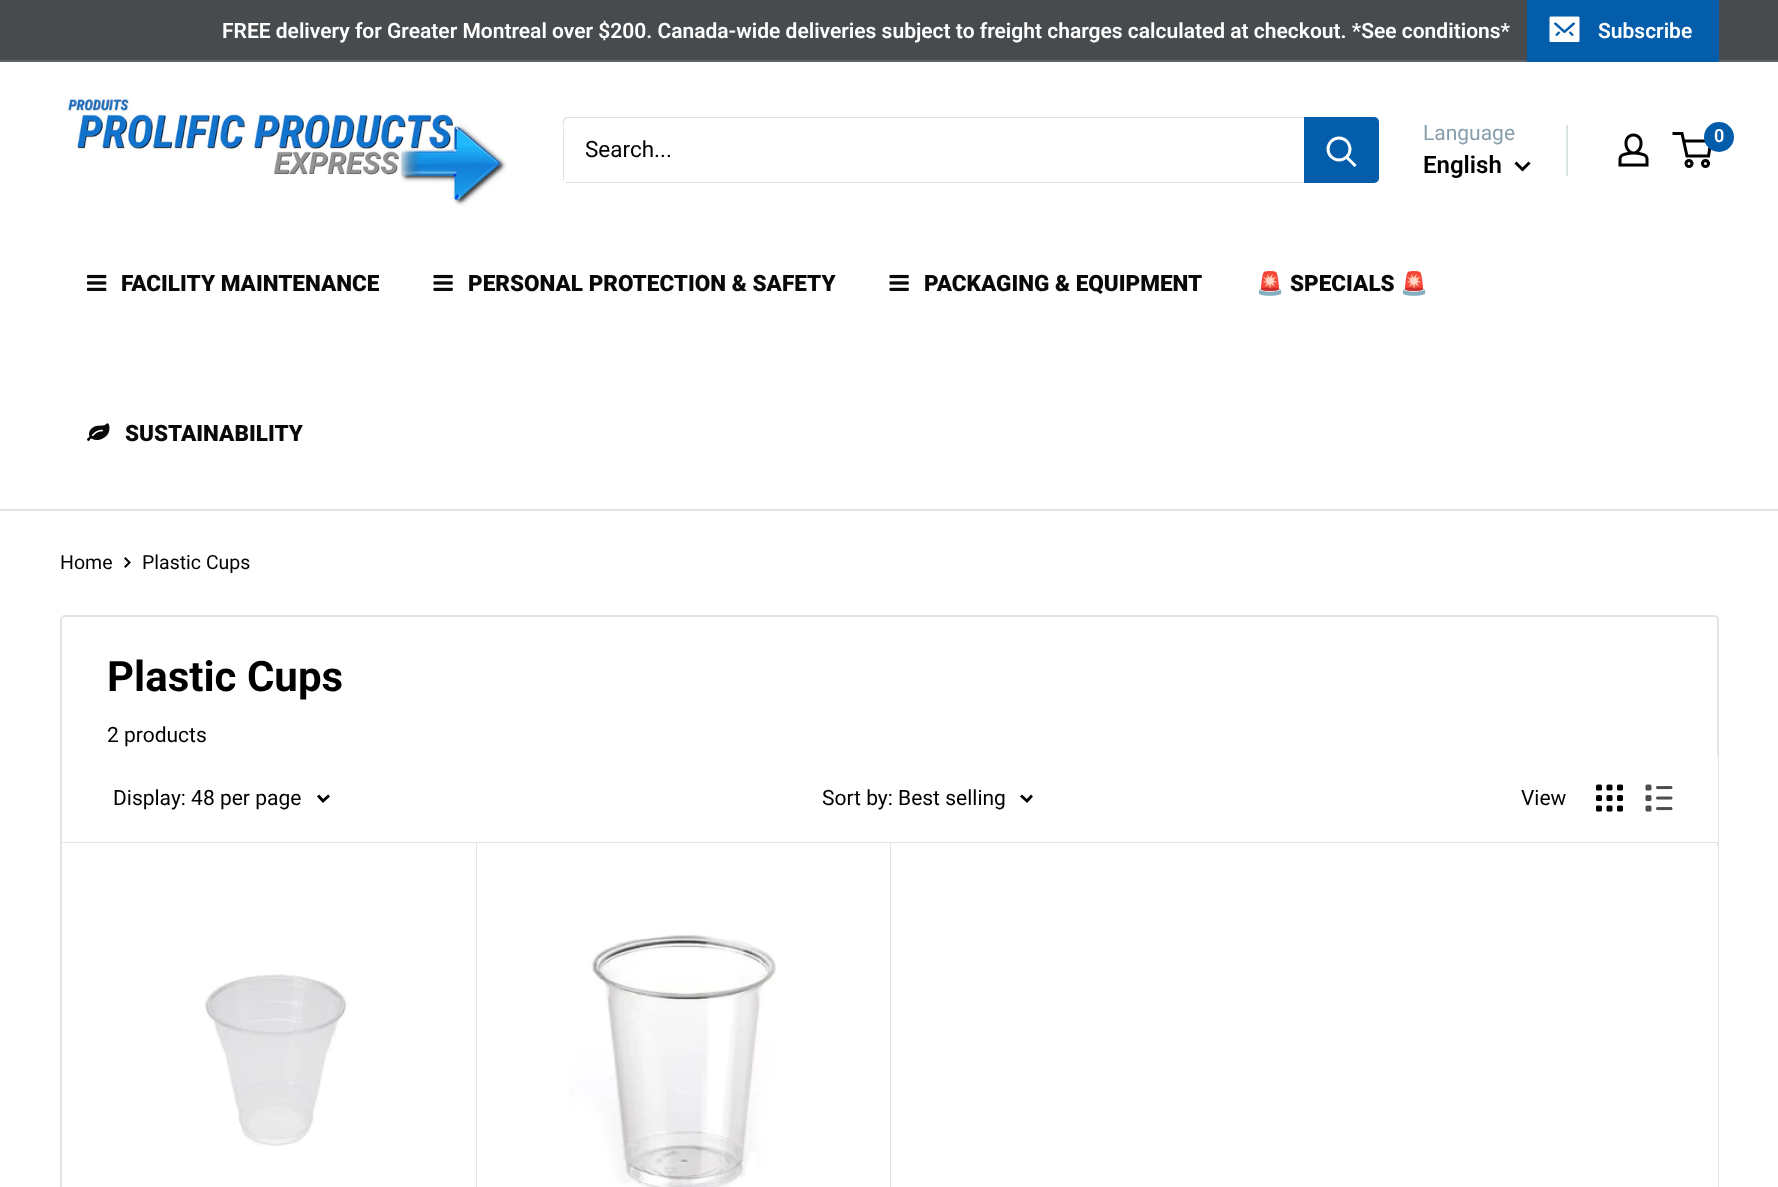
async function draw(canvas) {
	canvas.width = 1778;
	canvas.height = 1187;
	const c = canvas.getContext('2d');
	c.miterLimit = 4;
	c.fontKerning = 'normal';
	async function loadImage(src) {
		const img = new Image();
		img.src = src;
		await img.decode();
		return img;
	}

	c.fillStyle = '#fff';
	c.fillRect(0, 0, 1778, 1187);
	c.fillStyle = '#474b4e';
	c.fillRect(0, 0, 1778, 60);
	c.fillStyle = '#5b646a';
	c.fillRect(0, 60, 1778, 2);
	c.font = '600 21px Roboto';
	c.fillStyle = '#fff';
	c.fillText('FREE delivery for Greater Montreal over $200. Canada-wide deliveries subject to freight charges calculated at checkout. *See conditions*', 222, 38);
	c.fillStyle = '#035dab';
	c.fillRect(1527, 0, 192, 62);
	c.drawImage(await loadImage('img1.png'), 1549, 16, 31, 26);
	c.fillStyle = '#fff';
	c.fillText('Subscribe', 1598, 38);
	c.drawImage(await loadImage('img2.png'), 66, 97, 441, 109);
	c.fillStyle = '#dbe2e6';
	c.beginPath();
	c.moveTo(565, 182);
	c.bezierCurveTo(566, 183, 567, 183, 568, 183);
	c.lineTo(1374, 183);
	c.bezierCurveTo(1377, 183, 1379, 181, 1379, 178);
	c.lineTo(1379, 122);
	c.bezierCurveTo(1379, 120, 1378, 118, 1376, 117);
	c.bezierCurveTo(1377, 118, 1377, 119, 1377, 120);
	c.lineTo(1377, 177);
	c.bezierCurveTo(1377, 179, 1375, 182, 1372, 182);
	c.closePath();
	c.fill();
	c.beginPath();
	c.moveTo(568, 118);
	c.lineTo(1376, 118);
	c.lineTo(1378, 119);
	c.bezierCurveTo(1377, 118, 1376, 117, 1374, 117);
	c.lineTo(568, 117);
	c.bezierCurveTo(565, 117, 563, 119, 563, 122);
	c.lineTo(563, 178);
	c.bezierCurveTo(563, 179, 563, 180, 564, 181);
	c.lineTo(564, 132);
	c.bezierCurveTo(564, 132, 562, 118, 568, 118);
	c.closePath();
	c.fill();
	c.font = '22.5px Roboto';
	c.fillStyle = '#000';
	c.fillText('Search...', 585, 157);
	c.fillStyle = '#035dab';
	c.beginPath();
	c.roundRect(1304, 117, 75, 66, [0, 5, 5, 0]);
	c.fill();
	c.beginPath();
	c.moveTo(1354.5, 165);
	c.lineTo(1347, 157.5);
	c.strokeStyle = '#fff';
	c.lineWidth = 3;
	c.lineCap = 'square';
	c.stroke();
	c.beginPath();
	c.arc(1339, 149, 11, 0, 2 * Math.PI);
	c.stroke();
	c.font = '21px Roboto';
	c.fillStyle = '#889eac';
	c.fillText('Language', 1423, 140);
	c.font = '600 24px Roboto';
	c.fillStyle = '#000';
	c.fillText('English', 1423, 173);
	c.beginPath();
	c.moveTo(1528.5, 163.5);
	c.lineTo(1522.5, 169.5);
	c.lineTo(1516.5, 163.5);
	c.strokeStyle = '#000';
	c.stroke();
	c.fillStyle = '#dbe2e6';
	c.fillRect(1566, 125, 2, 51);
	c.drawImage(await loadImage('img3.png'), 1618, 133, 31, 34);
	c.beginPath();
	c.arc(1689, 163.5, 3, 0, 2 * Math.PI);
	c.stroke();
	c.beginPath();
	c.arc(1705.5, 163.5, 3, 0, 2 * Math.PI);
	c.stroke();
	c.beginPath();
	c.moveTo(1683.5, 141);
	c.lineTo(1711, 141);
	c.lineTo(1708.5, 156);
	c.lineTo(1687, 156);
	c.lineTo(1682, 133.5);
	c.lineTo(1672.5, 133.5);
	c.lineCap = 'butt';
	c.stroke();
	c.fillStyle = '#035dab';
	c.beginPath();
	c.arc(1719, 137, 15, 0, 2 * Math.PI);
	c.fill();
	c.font = '600 18px Roboto';
	c.fillStyle = '#fff';
	c.fillText('0', 1714, 142);
	c.fillStyle = '#e1e3e4';
	c.fillRect(0, 509, 1778, 2);
	c.drawImage(await loadImage('img4.png'), 87, 274, 20, 17);
	c.font = '900 22.5px Roboto';
	c.fillStyle = '#090909';
	c.fillText('FACILITY MAINTENANCE', 121, 291);
	c.drawImage(await loadImage('img5.png'), 433, 274, 20, 17);
	c.fillText('PERSONAL PROTECTION & SAFETY', 468, 291);
	c.drawImage(await loadImage('img5.png'), 889, 274, 20, 17);
	c.fillText('PACKAGING & EQUIPMENT', 924, 291);
	c.font = 'bold 22.5px Noto Color Emoji';
	c.fillText('🚨', 1256, 291);
	c.font = '900 22.5px Roboto';
	c.fillText('SPECIALS', 1290, 291);
	c.font = 'bold 22.5px Noto Color Emoji';
	c.fillText('🚨', 1400, 291);
	c.drawImage(await loadImage('img6.png'), 87, 423, 23, 18);
	c.font = '900 22.5px Roboto';
	c.fillText('SUSTAINABILITY', 125, 441);
	c.font = '19.5px Roboto';
	c.fillStyle = '#000';
	c.fillText('Home', 60, 569);
	c.beginPath();
	c.moveTo(125.5, 558.5);
	c.lineTo(129.5, 562.5);
	c.lineTo(125.5, 566.5);
	c.lineWidth = 2;
	c.lineCap = 'square';
	c.stroke();
	c.fillText('Plastic Cups', 142, 569);
	c.beginPath();
	c.roundRect(61, 616, 1657, 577, 4);
	c.strokeStyle = '#e1e3e4';
	c.stroke();
	c.font = 'bold 42px Roboto';
	c.fillText('Plastic Cups', 107, 691);
	c.font = '21px Roboto';
	c.fillText('2 products', 107, 742);
	c.fillStyle = '#fff';
	c.beginPath();
	c.roundRect(62, 842, 1656, 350, 5);
	c.fill();
	c.fillStyle = '#e1e3e4';
	c.beginPath();
	c.moveTo(65, 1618);
	c.lineTo(67, 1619);
	c.lineTo(477, 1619);
	c.lineTo(477, 842);
	c.lineTo(476, 842);
	c.lineTo(476, 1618);
	c.closePath();
	c.fill();
	c.beginPath();
	c.moveTo(477, 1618);
	c.lineTo(477, 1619);
	c.lineTo(891, 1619);
	c.lineTo(891, 842);
	c.lineTo(890, 842);
	c.lineTo(890, 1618);
	c.closePath();
	c.fill();
	c.beginPath();
	c.moveTo(62, 842);
	c.lineTo(62, 843);
	c.lineTo(1718, 843);
	c.lineTo(1718, 756);
	c.lineTo(1718, 842);
	c.closePath();
	c.fill();
	c.fillStyle = '#fff';
	c.fillRect(1717, 755, 1, 87);
	c.fillStyle = '#000';
	c.fillText('Display: 48 per page', 113, 805);
	c.beginPath();
	c.moveTo(328, 796.5);
	c.lineTo(323, 801);
	c.lineTo(319, 796.5);
	c.strokeStyle = '#000';
	c.lineWidth = 2.8;
	c.stroke();
	c.fillText('Sort by: Best selling', 822, 805);
	c.beginPath();
	c.moveTo(1031, 796.5);
	c.lineTo(1027, 801);
	c.lineTo(1022, 796.5);
	c.stroke();
	c.fillText('View', 1521, 805);
	c.drawImage(await loadImage('img7.png'), 1596, 784, 27, 28);
	c.drawImage(await loadImage('img8.png'), 1645, 784, 28, 28);
	c.drawImage(await loadImage('img9.png'), 204, 974, 143, 173);
	c.drawImage(await loadImage('img10.png'), 569, 934, 207, 253);
}

draw(document.querySelector('canvas'));
